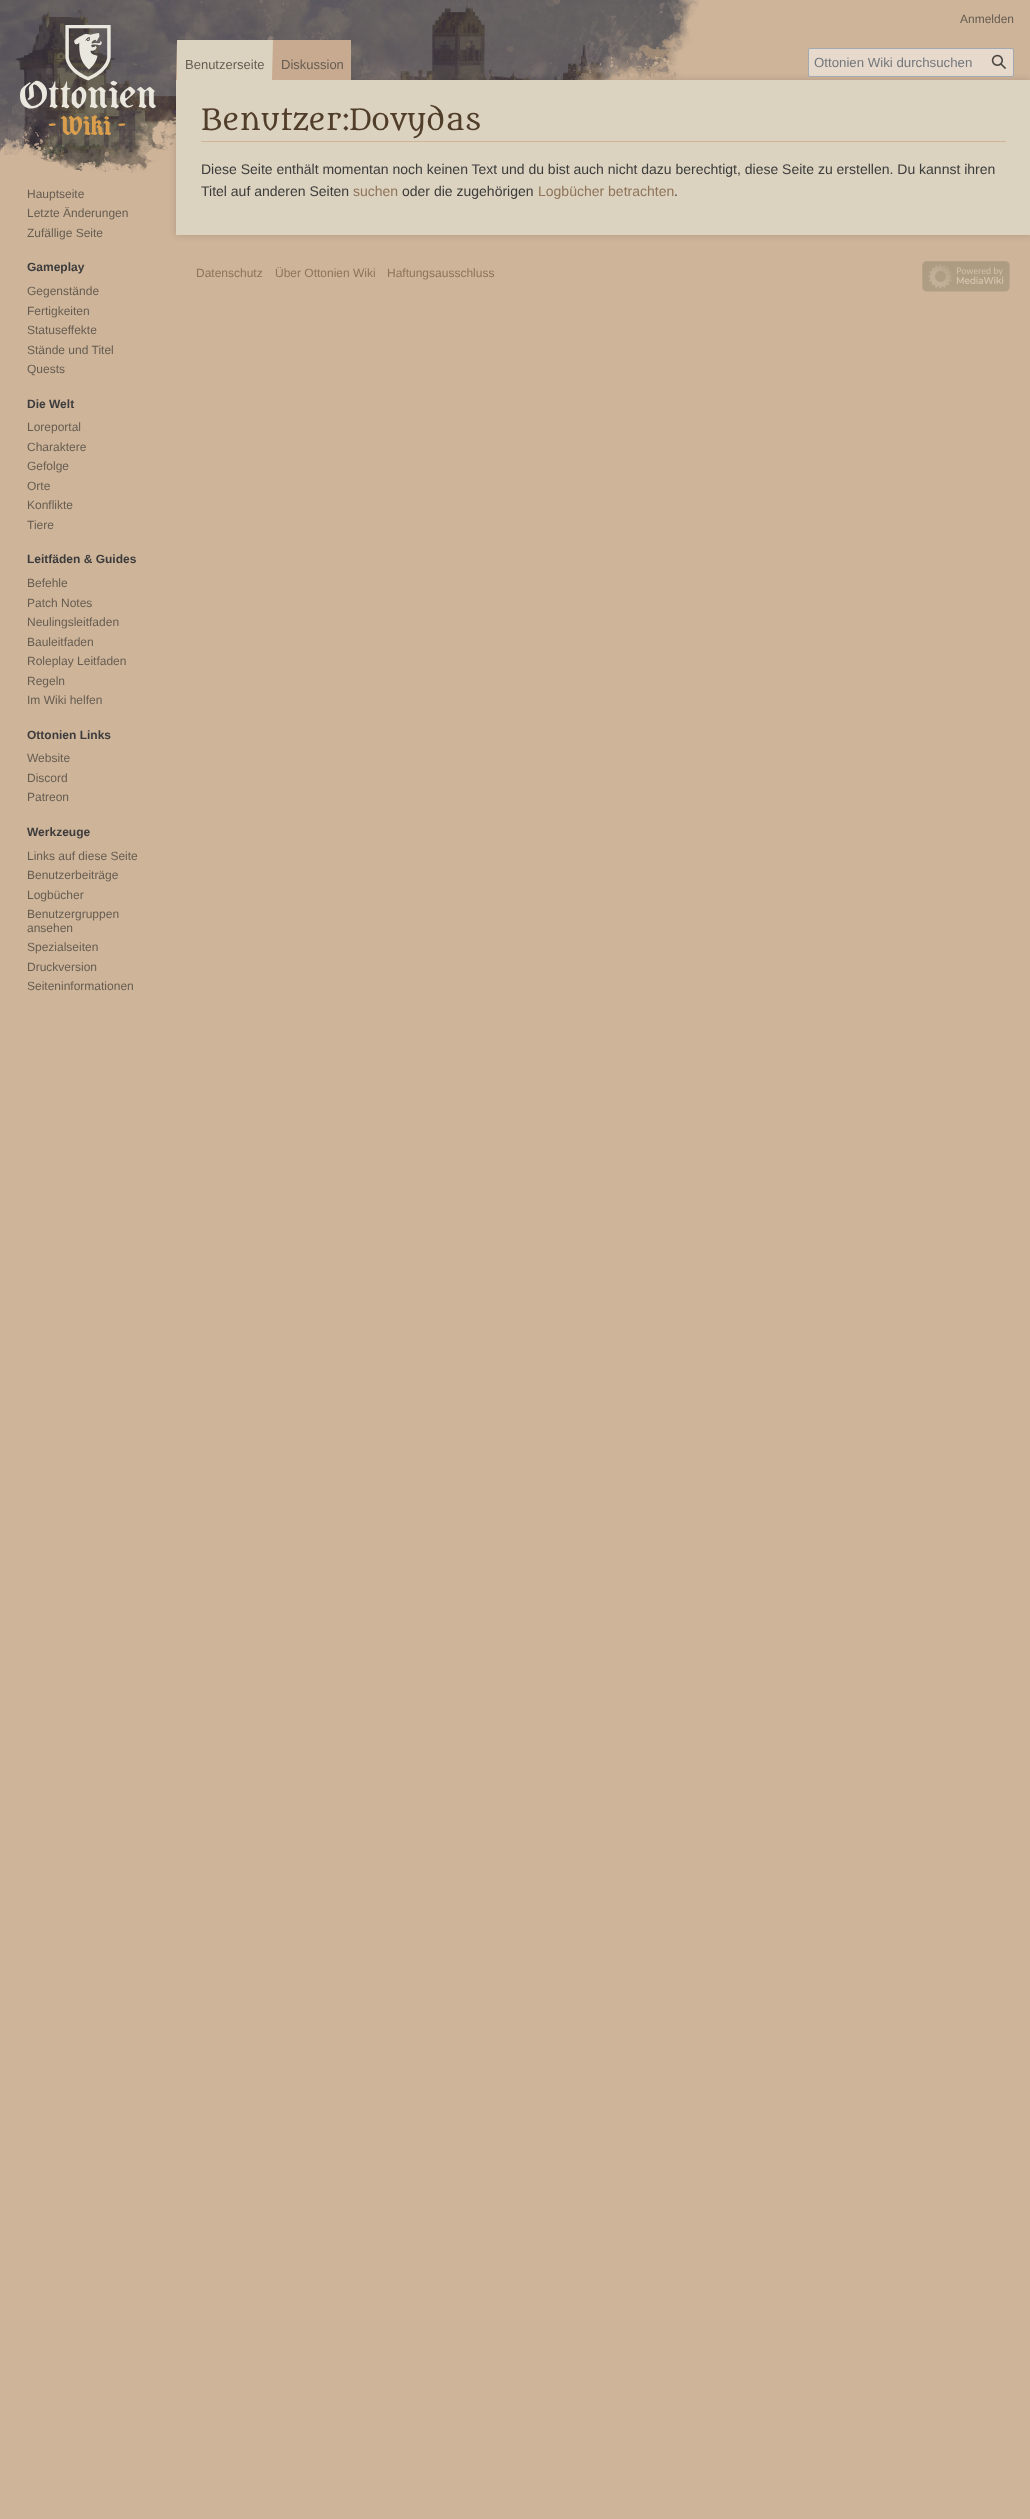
async function draw(canvas) {
	canvas.width = 1030;
	canvas.height = 2519;
	const c = canvas.getContext('2d');
	c.miterLimit = 4;
	c.fontKerning = 'normal';
	async function loadImage(src) {
		const img = new Image();
		img.src = src;
		await img.decode();
		return img;
	}
	let gradient;

	c.fillStyle = '#ceb499';
	c.fillRect(0, 0, 1030, 2519);
	c.drawImage(await loadImage('img1.png'), 0, 0, 699, 173);
	c.font = '12px Liberation Sans';
	c.fillStyle = '#665d52';
	c.fillText('Anmelden', 960, 23);
	c.fillStyle = '#00000026';
	c.filter = 'blur(3.5px)';
	c.beginPath();
	c.rect(176, 80, 854, 155);
	c.fill();
	c.filter = 'none';
	gradient = c.createLinearGradient(177, 40, 177, 80);
	gradient.addColorStop(0, '#c7aa9000');
	gradient.addColorStop(1, '#c7aa90');
	c.fillStyle = gradient;
	c.fillRect(176, 40, 1, 40);
	c.fillStyle = '#dbd2bf';
	c.fillRect(177, 40, 95, 40);
	gradient = c.createLinearGradient(273, 40, 273, 80);
	gradient.addColorStop(0, '#dbd2bf');
	gradient.addColorStop(1, '#c7aa90');
	c.fillStyle = gradient;
	c.fillRect(272, 40, 1, 40);
	c.font = '13px Liberation Sans';
	c.fillStyle = '#665d52';
	c.fillText('Benutzerseite', 185, 69);
	c.fillStyle = '#c7aa90';
	c.fillRect(273, 40, 78, 40);
	c.fillStyle = '#665d52';
	c.fillText('Diskussion', 281, 69);
	c.fillStyle = '#ffffff80';
	c.beginPath();
	c.roundRect(808.5, 48.5, 205, 28, 1.5);
	c.fill();
	c.strokeStyle = '#a2a9b1';
	c.stroke();
	c.font = '13.25px Liberation Sans';
	c.fillStyle = '#72777d';
	c.fillText('Ottonien Wiki durchsuchen', 814, 67);
	c.drawImage(await loadImage('img2.png'), 991, 54, 15, 15);
	c.drawImage(await loadImage('img3.png'), 20, 25, 136, 110);
	c.font = '12px Liberation Sans';
	c.fillStyle = '#665d52';
	for (const [text, x, y] of [
		['Hauptseite', 27, 198],
		['Letzte Änderungen', 27, 217],
		['Zufällige Seite', 27, 237],
	]) {
		c.fillText(text, x, y);
	}
	c.font = 'bold 12px Liberation Sans';
	c.fillStyle = '#3c3c3c';
	c.fillText('Gameplay', 27, 271);
	c.font = '12px Liberation Sans';
	c.fillStyle = '#665d52';
	for (const [text, x, y] of [
		['Gegenstände', 27, 295],
		['Fertigkeiten', 27, 315],
		['Statuseffekte', 27, 334],
		['Stände und Titel', 27, 354],
		['Quests', 27, 373],
	]) {
		c.fillText(text, x, y);
	}
	c.font = 'bold 12px Liberation Sans';
	c.fillStyle = '#3c3c3c';
	c.fillText('Die Welt', 27, 408);
	c.font = '12px Liberation Sans';
	c.fillStyle = '#665d52';
	for (const [text, x, y] of [
		['Loreportal', 27, 431],
		['Charaktere', 27, 451],
		['Gefolge', 27, 470],
		['Orte', 27, 490],
		['Konflikte', 27, 509],
		['Tiere', 27, 529],
	]) {
		c.fillText(text, x, y);
	}
	c.font = 'bold 12px Liberation Sans';
	c.fillStyle = '#3c3c3c';
	c.fillText('Leitfäden & Guides', 27, 563);
	c.font = '12px Liberation Sans';
	c.fillStyle = '#665d52';
	for (const [text, x, y] of [
		['Befehle', 27, 587],
		['Patch Notes', 27, 607],
		['Neulingsleitfaden', 27, 626],
		['Bauleitfaden', 27, 646],
		['Roleplay Leitfaden', 27, 665],
		['Regeln', 27, 685],
		['Im Wiki helfen', 27, 704],
	]) {
		c.fillText(text, x, y);
	}
	c.font = 'bold 12px Liberation Sans';
	c.fillStyle = '#3c3c3c';
	c.fillText('Ottonien Links', 27, 739);
	c.font = '12px Liberation Sans';
	c.fillStyle = '#665d52';
	for (const [text, x, y] of [
		['Website', 27, 762],
		['Discord', 27, 782],
		['Patreon', 27, 801],
	]) {
		c.fillText(text, x, y);
	}
	c.font = 'bold 12px Liberation Sans';
	c.fillStyle = '#3c3c3c';
	c.fillText('Werkzeuge', 27, 836);
	c.font = '12px Liberation Sans';
	c.fillStyle = '#665d52';
	for (const [text, x, y] of [
		['Links auf diese Seite', 27, 860],
		['Benutzerbeiträge', 27, 879],
		['Logbücher', 27, 899],
		['Benutzergruppen', 27, 918],
		['ansehen', 27, 932],
		['Spezialseiten', 27, 951],
		['Druckversion', 27, 971],
		['Seiteninformationen', 27, 990],
	]) {
		c.fillText(text, x, y);
	}
	c.fillStyle = '#dbd2bf';
	c.fillRect(176, 80, 854, 155);
	c.fillStyle = '#ceb499';
	c.fillRect(201, 141, 805, 1);
	c.font = '28.75px Metamorphous';
	c.fillStyle = '#513e2a';
	c.fillText('Benutzer:Dovydas', 201, 130);
	c.font = '14px Liberation Sans';
	c.fillStyle = '#3c3c3c';
	c.fillText('Diese Seite enthält momentan noch keinen Text und du bist auch nicht dazu berechtigt, diese Seite zu erstellen. Du kannst ihren', 201, 174);
	c.fillText('Titel auf anderen Seiten', 201, 196);
	c.fillStyle = '#8f7459';
	c.fillText('suchen', 353, 196);
	c.fillStyle = '#3c3c3c';
	c.fillText('oder die zugehörigen', 402, 196);
	c.fillStyle = '#8f7459';
	c.fillText('Logbücher betrachten', 538, 196);
	c.fillStyle = '#3c3c3c';
	c.fillText('.', 674, 196);
	c.font = '12px Liberation Sans';
	c.fillStyle = '#8f7459';
	for (const [text, x, y] of [
		['Datenschutz', 196, 277],
		['Über Ottonien Wiki', 275, 277],
		['Haftungsausschluss', 387, 277],
	]) {
		c.fillText(text, x, y);
	}
	c.drawImage(await loadImage('img4.png'), 922, 261, 88, 31);
}

draw(document.querySelector('canvas'));
